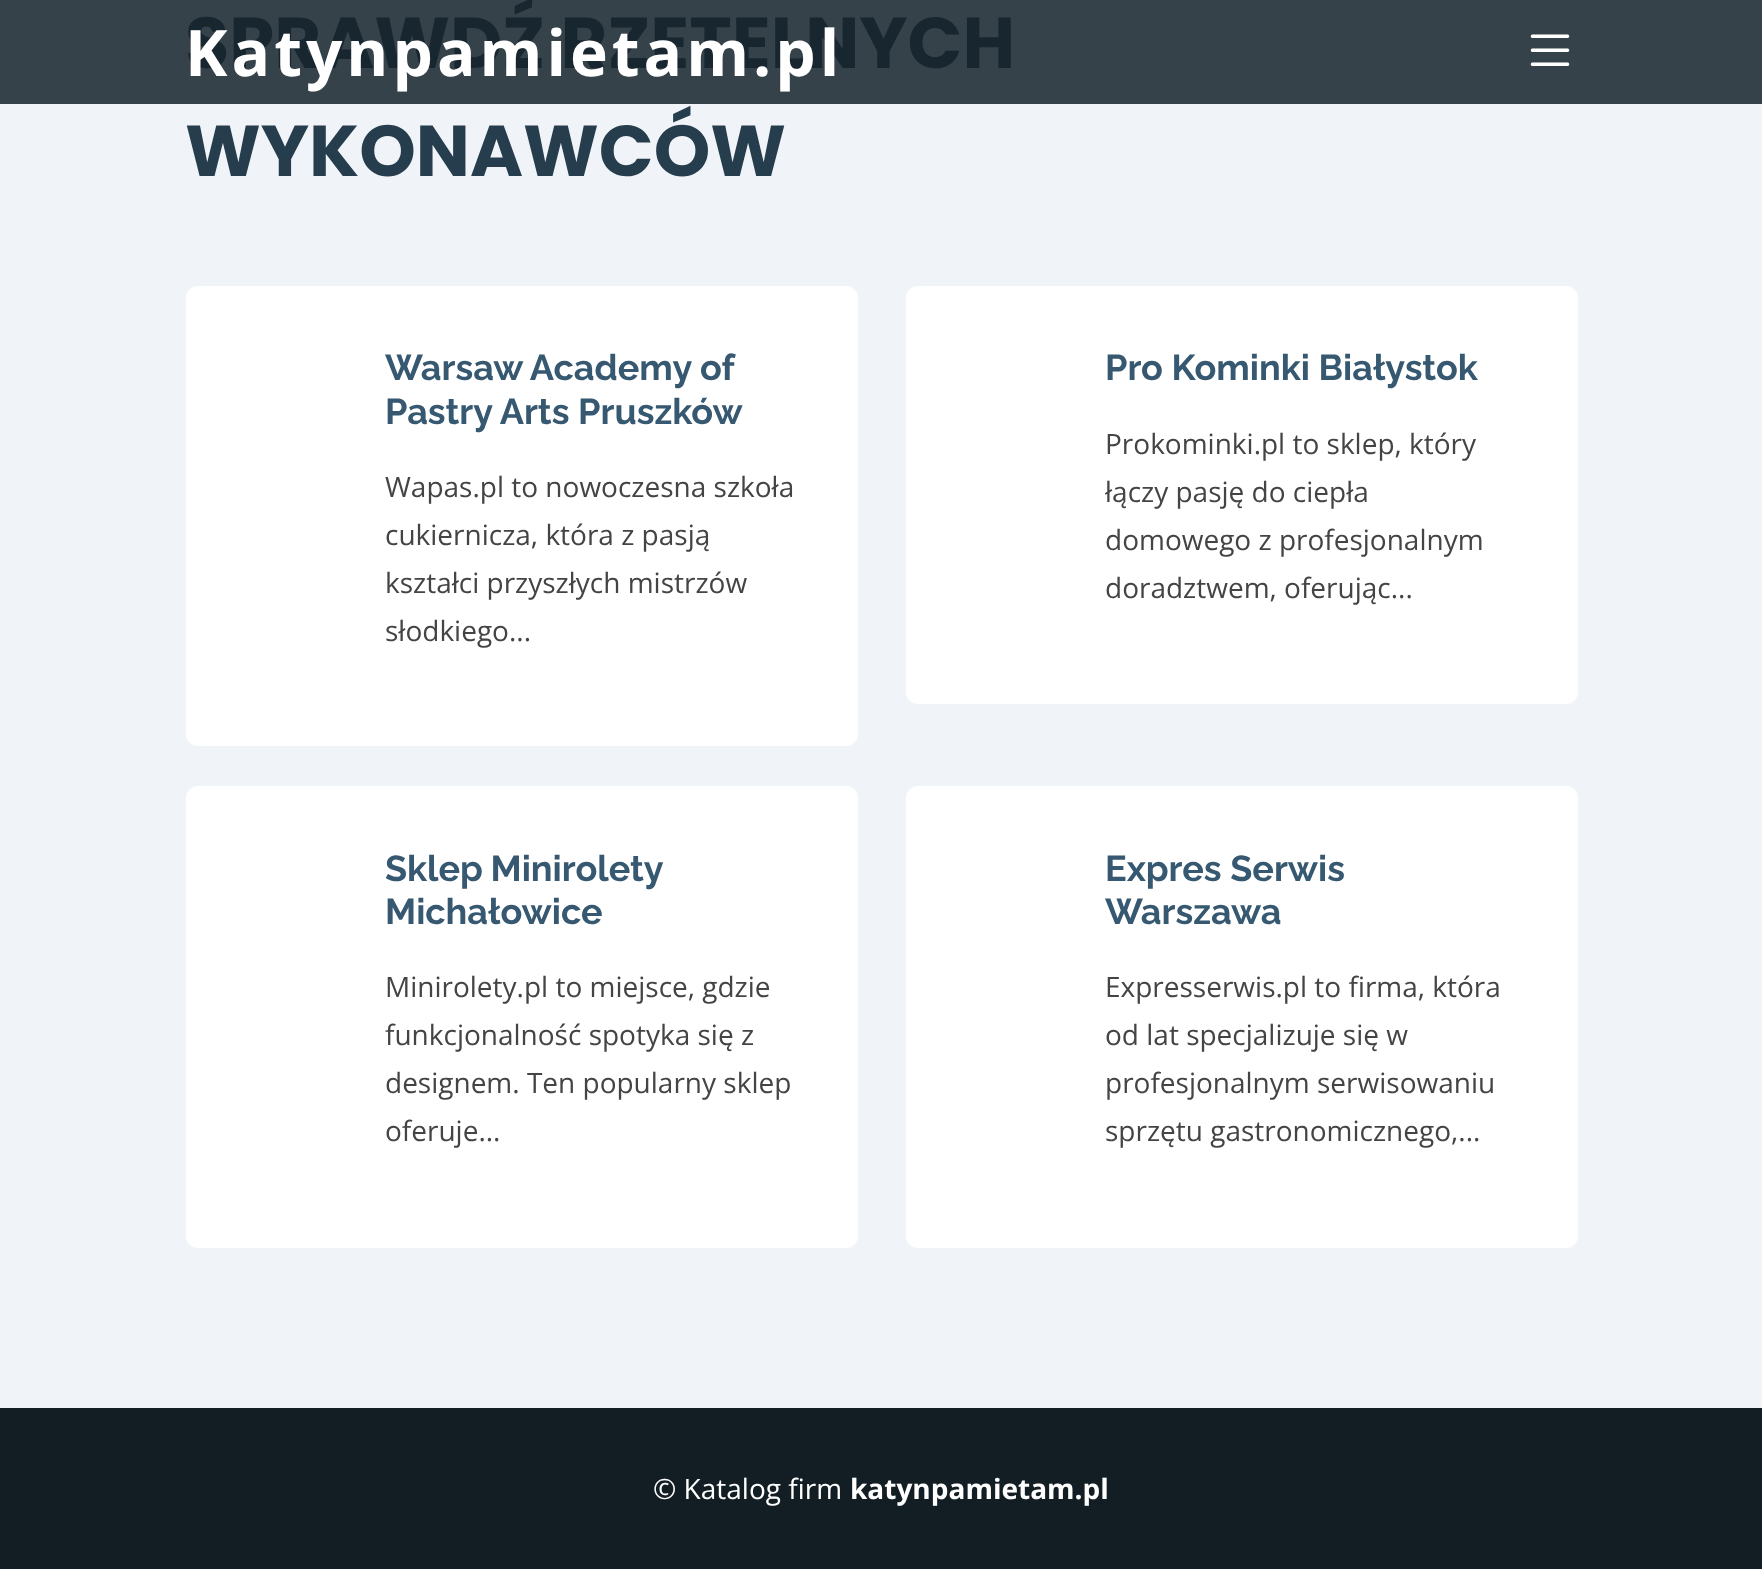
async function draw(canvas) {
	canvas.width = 1762;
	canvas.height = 1569;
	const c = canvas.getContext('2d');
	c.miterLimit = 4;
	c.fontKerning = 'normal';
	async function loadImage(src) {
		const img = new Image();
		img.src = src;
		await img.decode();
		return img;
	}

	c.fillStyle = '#121d24';
	c.fillRect(0, 0, 1762, 1569);
	c.fillStyle = '#f0f4f8';
	c.fillRect(0, 104, 1762, 1304);
	c.fillStyle = '#36424a';
	c.fillRect(0, 0, 1762, 104);
	c.font = 'bold 72px Poppins';
	c.fillStyle = '#182630';
	c.fillText('SPRAWDŹ RZETELNYCH', 185, 68);
	c.fillStyle = '#263d4d';
	c.fillText('WYKONAWCÓW', 185, 176);
	c.fillStyle = '#fff';
	c.beginPath();
	c.roundRect(186, 286, 672, 460, 12);
	c.fill();
	c.font = 'bold 36px Raleway';
	c.fillStyle = '#365870';
	c.fillText('Warsaw Academy of', 385, 380);
	c.fillText('Pastry Arts Pruszków', 385, 424);
	c.font = '28px Open Sans';
	c.fillStyle = '#444';
	for (const [text, x, y] of [
		['Wapas.pl to nowoczesna szkoła', 385, 497],
		['cukiernicza, która z pasją', 385, 545],
		['kształci przyszłych mistrzów', 385, 593],
		['słodkiego...', 385, 641],
	]) {
		c.fillText(text, x, y);
	}
	c.fillStyle = '#fff';
	c.beginPath();
	c.roundRect(906, 286, 672, 418, 12);
	c.fill();
	c.font = 'bold 36px Raleway';
	c.fillStyle = '#365870';
	c.fillText('Pro Kominki Białystok', 1105, 380);
	c.font = '28px Open Sans';
	c.fillStyle = '#444';
	for (const [text, x, y] of [
		['Prokominki.pl to sklep, który', 1105, 454],
		['łączy pasję do ciepła', 1105, 502],
		['domowego z profesjonalnym', 1105, 550],
		['doradztwem, oferując...', 1105, 598],
	]) {
		c.fillText(text, x, y);
	}
	c.fillStyle = '#fff';
	c.beginPath();
	c.roundRect(186, 786, 672, 462, 12);
	c.fill();
	c.wordSpacing = '-1px';
	c.font = 'bold 36px Raleway';
	c.fillStyle = '#365870';
	c.fillText('Sklep Minirolety', 385, 881);
	c.wordSpacing = '0px';
	c.fillText('Michałowice', 385, 924);
	c.font = '28px Open Sans';
	c.fillStyle = '#444';
	for (const [text, x, y] of [
		['Minirolety.pl to miejsce, gdzie', 385, 997],
		['funkcjonalność spotyka się z', 385, 1045],
		['designem. Ten popularny sklep', 385, 1093],
		['oferuje...', 385, 1141],
	]) {
		c.fillText(text, x, y);
	}
	c.fillStyle = '#fff';
	c.beginPath();
	c.roundRect(906, 786, 672, 462, 12);
	c.fill();
	c.font = 'bold 36px Raleway';
	c.fillStyle = '#365870';
	c.fillText('Expres Serwis', 1105, 881);
	c.fillText('Warszawa', 1105, 924);
	c.font = '28px Open Sans';
	c.fillStyle = '#444';
	for (const [text, x, y] of [
		['Expresserwis.pl to firma, która', 1105, 997],
		['od lat specjalizuje się w', 1105, 1045],
		['profesjonalnym serwisowaniu', 1105, 1093],
		['sprzętu gastronomicznego,...', 1105, 1141],
	]) {
		c.fillText(text, x, y);
	}
	c.letterSpacing = '4px';
	c.font = 'bold 64px Open Sans';
	c.fillStyle = '#fff';
	c.fillText('Katynpamietam.pl', 185, 76);
	c.drawImage(await loadImage('img1.png'), 1530, 34, 40, 32);
	c.letterSpacing = '0px';
	c.font = '28px Open Sans';
	c.fillText('© Katalog firm', 653, 1499);
	c.font = 'bold 28px Open Sans';
	c.fillText('katynpamietam.pl', 850, 1499);
}

draw(document.querySelector('canvas'));
